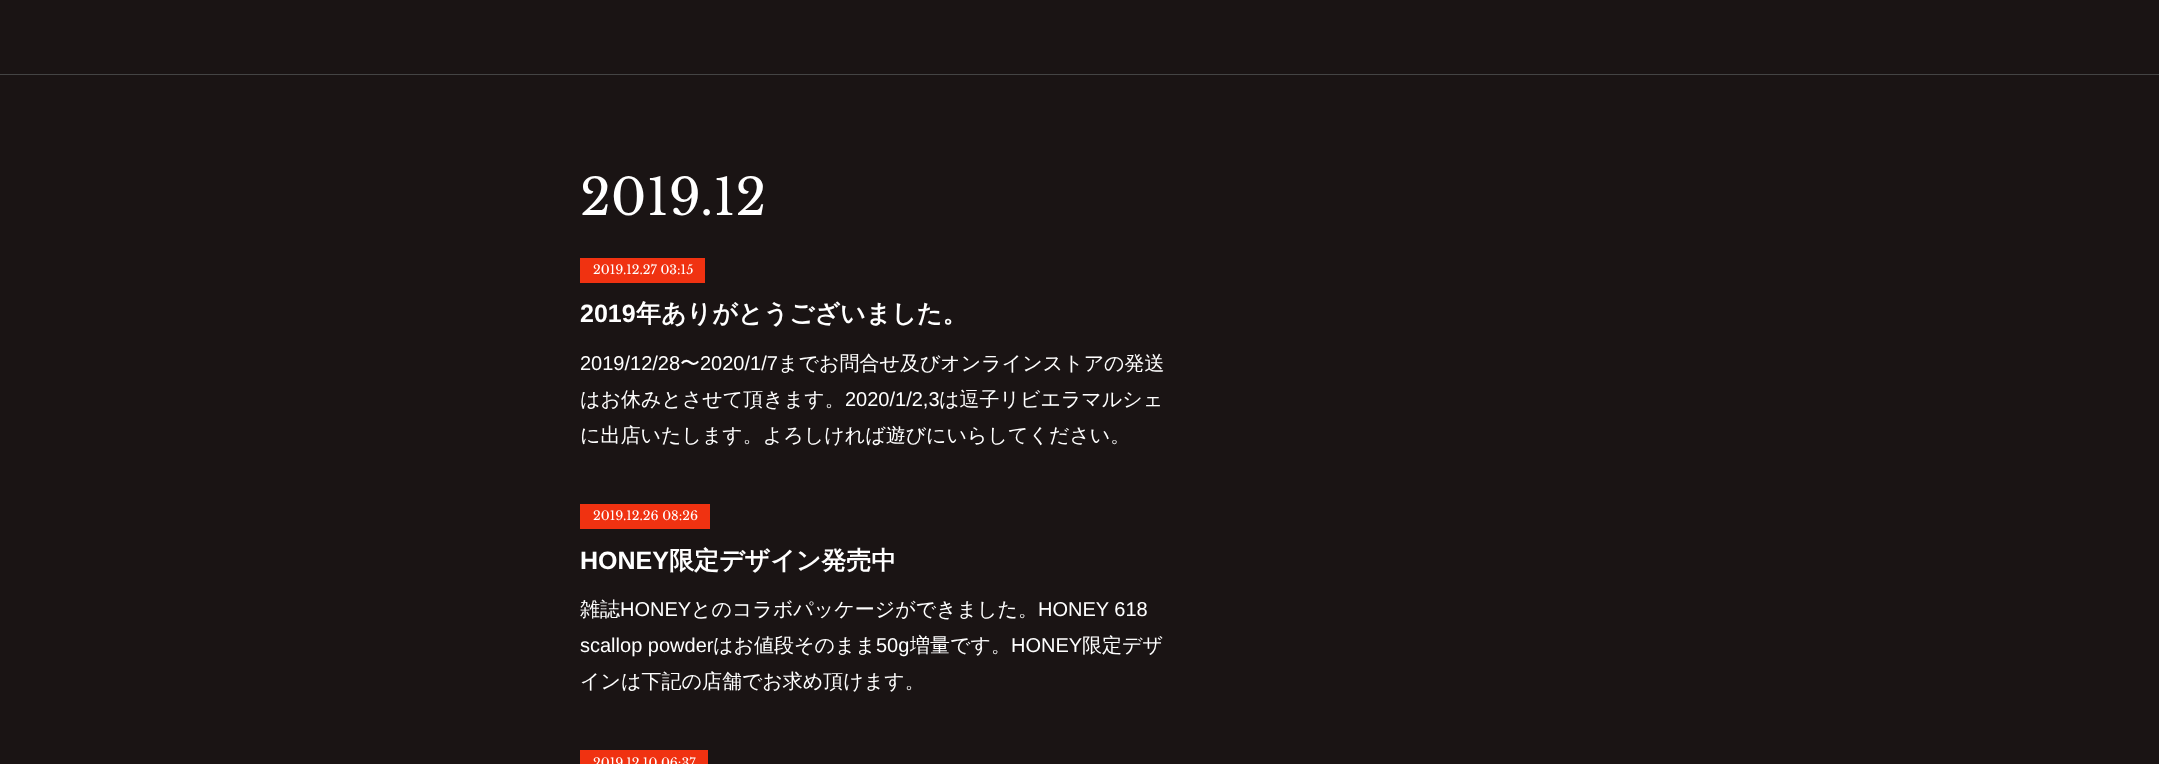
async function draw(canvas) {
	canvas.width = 2159;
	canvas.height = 764;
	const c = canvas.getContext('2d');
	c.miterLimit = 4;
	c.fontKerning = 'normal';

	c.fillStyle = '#1a1414';
	c.fillRect(0, 0, 2159, 764);
	c.fillStyle = '#444';
	c.fillRect(0, 74, 2159, 1);
	c.font = '50px Libre Baskerville';
	c.fillStyle = '#fff';
	c.fillText('2019', 580, 215);
	c.fillText('.12', 700, 215);
	c.fillStyle = '#f03211';
	c.fillRect(580, 258, 125, 25);
	c.font = '12.5px Libre Baskerville';
	c.fillStyle = '#fff';
	c.fillText('2019.12.27 03:15', 593, 274);
	c.font = 'bold 25px Liberation Sans';
	c.fillText('2019', 580, 322);
	c.font = 'bold 25px WenQuanYi Zen Hei';
	c.fillText('年ありがとうございました。', 636, 322);
	c.font = '20px Liberation Sans';
	c.fillText('2019/12/28', 580, 370);
	c.font = '500 20px WenQuanYi Zen Hei';
	c.fillText('〜', 680, 370);
	c.font = '20px Liberation Sans';
	c.fillText('2020/1/7', 700, 370);
	c.font = '500 20px WenQuanYi Zen Hei';
	c.fillText('までお問合せ及びオンラインストアの発送', 778, 370);
	c.fillText('はお休みとさせて頂きます。', 580, 406);
	c.font = '20px Liberation Sans';
	c.fillText('2020/1/2,3', 845, 406);
	c.font = '500 20px WenQuanYi Zen Hei';
	c.fillText('は逗子リビエラマルシェ', 939, 406);
	c.fillText('に出店いたします。よろしければ遊びにいらしてください。', 580, 442);
	c.fillStyle = '#f03211';
	c.fillRect(580, 504, 130, 25);
	c.font = '12.5px Libre Baskerville';
	c.fillStyle = '#fff';
	c.fillText('2019.12.26 08:26', 593, 520);
	c.font = 'bold 25px Liberation Sans';
	c.fillText('HONEY', 580, 569);
	c.font = 'bold 25px WenQuanYi Zen Hei';
	c.fillText('限定デザイン発売中', 669, 569);
	c.font = '500 20px WenQuanYi Zen Hei';
	c.fillText('雑誌', 580, 616);
	c.font = '20px Liberation Sans';
	c.fillText('HONEY', 620, 616);
	c.font = '500 20px WenQuanYi Zen Hei';
	c.fillText('とのコラボパッケージができました。', 691, 616);
	c.font = '20px Liberation Sans';
	c.fillText('HONEY 618', 1038, 616);
	c.fillText('scallop powder', 580, 652);
	c.font = '500 20px WenQuanYi Zen Hei';
	c.fillText('はお値段そのまま', 713, 652);
	c.font = '20px Liberation Sans';
	c.fillText('50g', 876, 652);
	c.font = '500 20px WenQuanYi Zen Hei';
	c.fillText('増量です。', 910, 652);
	c.font = '20px Liberation Sans';
	c.fillText('HONEY', 1011, 652);
	c.font = '500 20px WenQuanYi Zen Hei';
	c.fillText('限定デザ', 1082, 652);
	c.fillText('インは下記の店舗でお求め頂けます。', 580, 688);
	c.fillStyle = '#f03211';
	c.fillRect(580, 750, 128, 14);
	c.font = '12.5px Libre Baskerville';
	c.fillStyle = '#fff';
	c.fillText('2019.12.10 06:37', 593, 767);
}

draw(document.querySelector('canvas'));
